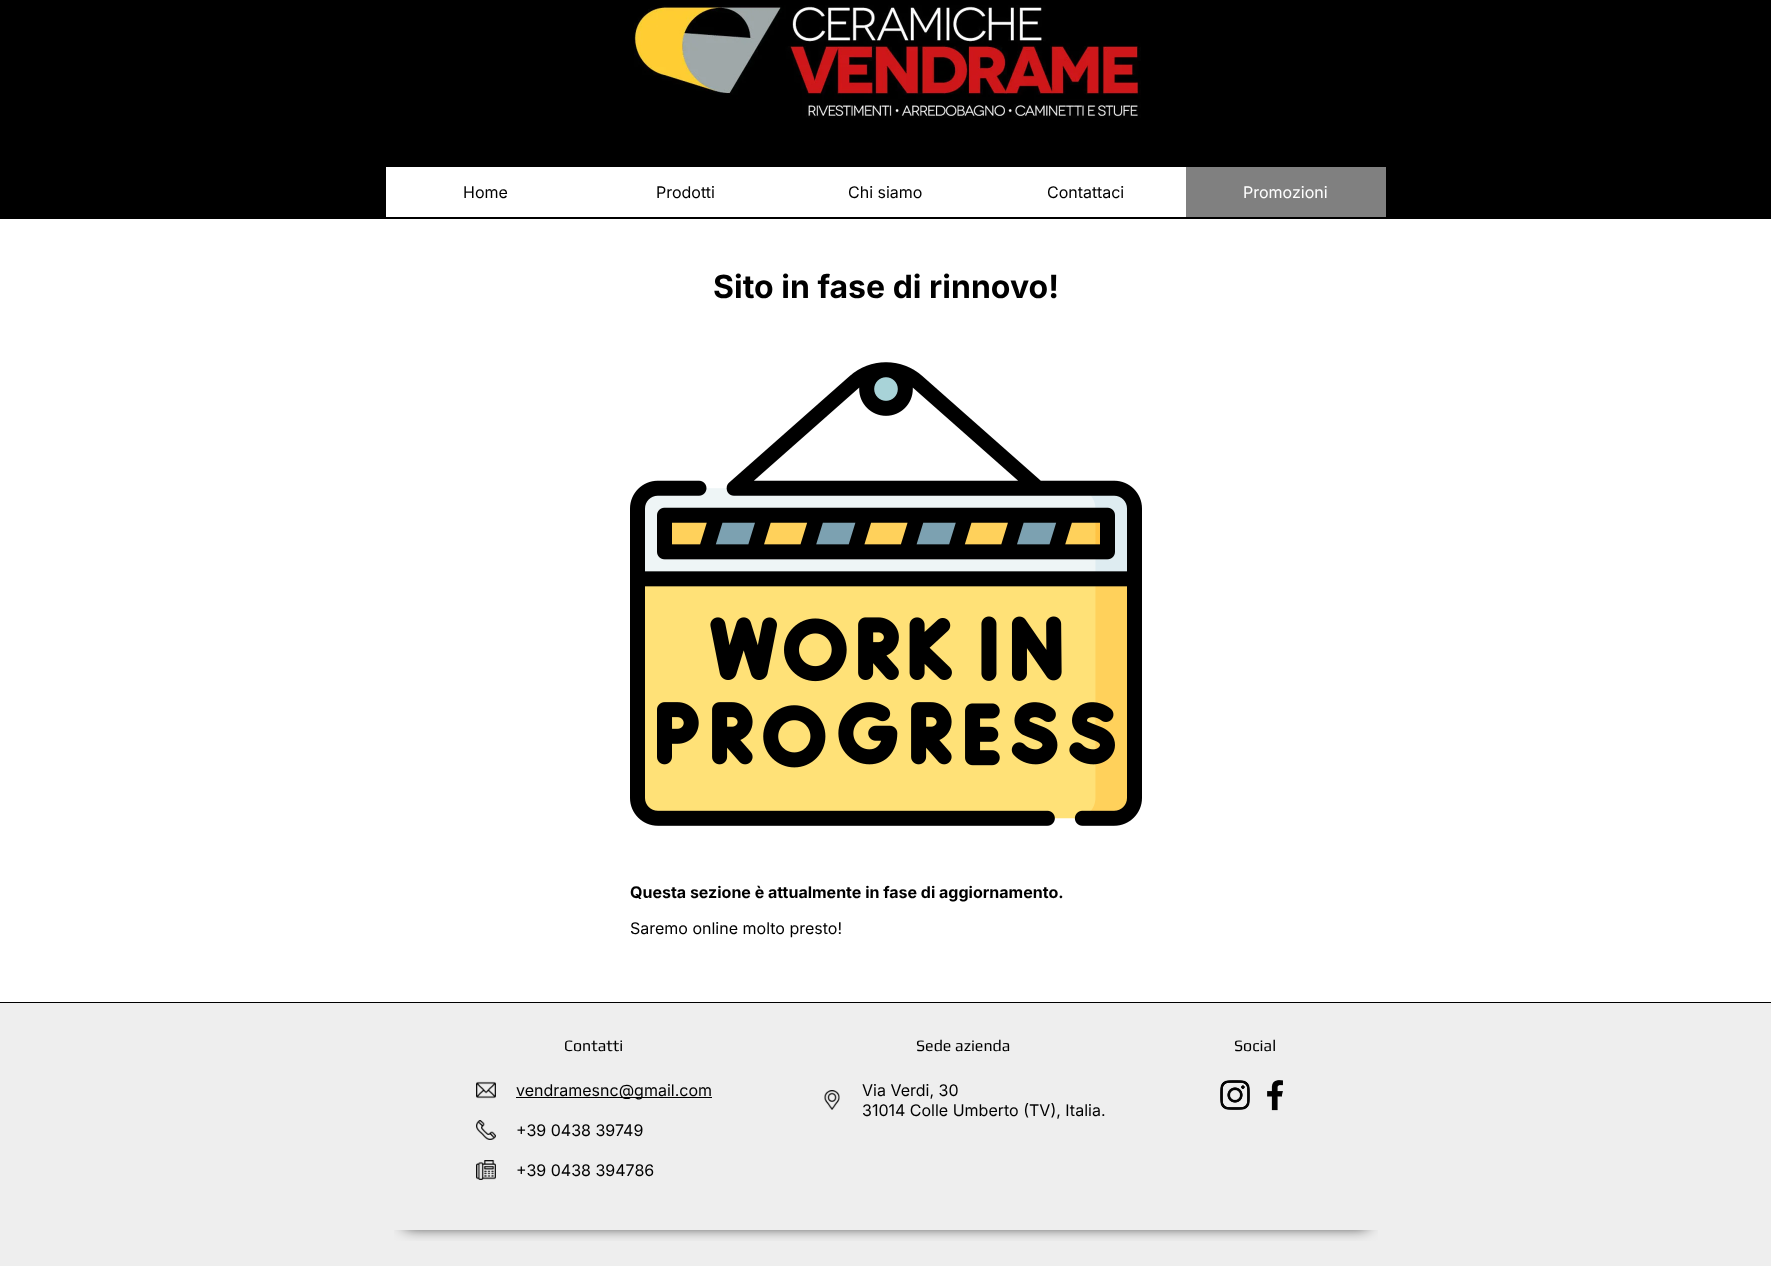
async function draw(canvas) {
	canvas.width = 1771;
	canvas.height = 1266;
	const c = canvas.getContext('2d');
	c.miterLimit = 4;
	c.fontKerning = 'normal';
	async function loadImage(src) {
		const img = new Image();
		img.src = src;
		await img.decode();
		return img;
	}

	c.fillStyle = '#fff';
	c.fillRect(0, 0, 1771, 1266);
	c.fillStyle = '#000';
	c.fillRect(0, 0, 1771, 219);
	c.drawImage(await loadImage('img1.png'), 634, 5, 507, 113);
	c.fillStyle = '#fff';
	c.fillRect(386, 167, 800, 50);
	c.font = '16px Inter';
	c.fillStyle = '#000';
	for (const [text, x, y] of [
		['Home', 463, 198],
		['Prodotti', 656, 198],
		['Chi siamo', 848, 198],
		['Contattaci', 1047, 198],
	]) {
		c.fillText(text, x, y);
	}
	c.fillStyle = '#808080';
	c.fillRect(1186, 167, 200, 50);
	c.fillStyle = '#fff';
	c.fillText('Promozioni', 1243, 198);
	c.font = 'bold 32px Inter';
	c.fillStyle = '#000';
	c.fillText('Sito in fase di rinnovo!', 713, 298);
	c.drawImage(await loadImage('img2.png'), 630, 362, 512, 464);
	c.font = 'bold 16px Inter';
	c.fillText('Questa sezione è attualmente in fase di aggiornamento.', 630, 898);
	c.font = '16px Inter';
	c.fillText('Saremo online molto presto!', 630, 934);
	c.fillStyle = '#eee';
	c.fillRect(0, 1003, 1771, 263);
	c.fillStyle = '#000';
	c.fillRect(0, 1002, 1771, 1);
	c.save();
	c.beginPath();
	c.rect(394, 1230, 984, 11);
	c.clip();
	c.filter = 'blur(7.5px)';
	c.beginPath();
	c.rect(405, 1037, 962, 189);
	c.fill();
	c.filter = 'none';
	c.restore();
	c.font = '16px Play';
	c.fillText('Contatti', 564, 1051);
	c.drawImage(await loadImage('img3.png'), 476, 1081, 20, 18);
	c.fillRect(516, 1097, 196, 1);
	c.font = '16px Inter';
	c.fillText('vendramesnc@gmail.com', 516, 1096);
	c.drawImage(await loadImage('img4.png'), 476, 1120, 20, 20);
	c.fillText('+39 0438 39749', 516, 1136);
	c.drawImage(await loadImage('img5.png'), 476, 1160, 20, 20);
	c.fillText('+39 0438 394786', 516, 1176);
	c.font = '16px Play';
	c.fillText('Sede azienda', 916, 1051);
	c.drawImage(await loadImage('img6.png'), 824, 1090, 16, 20);
	c.font = '16px Inter';
	c.fillText('Via Verdi, 30', 862, 1096);
	c.fillText('31014 Colle Umberto (TV), Italia.', 862, 1116);
	c.font = '16px Play';
	c.fillText('Social', 1234, 1051);
	c.drawImage(await loadImage('img7.png'), 1220, 1080, 30, 30);
	c.drawImage(await loadImage('img8.png'), 1267, 1080, 16, 31);
}

draw(document.querySelector('canvas'));
